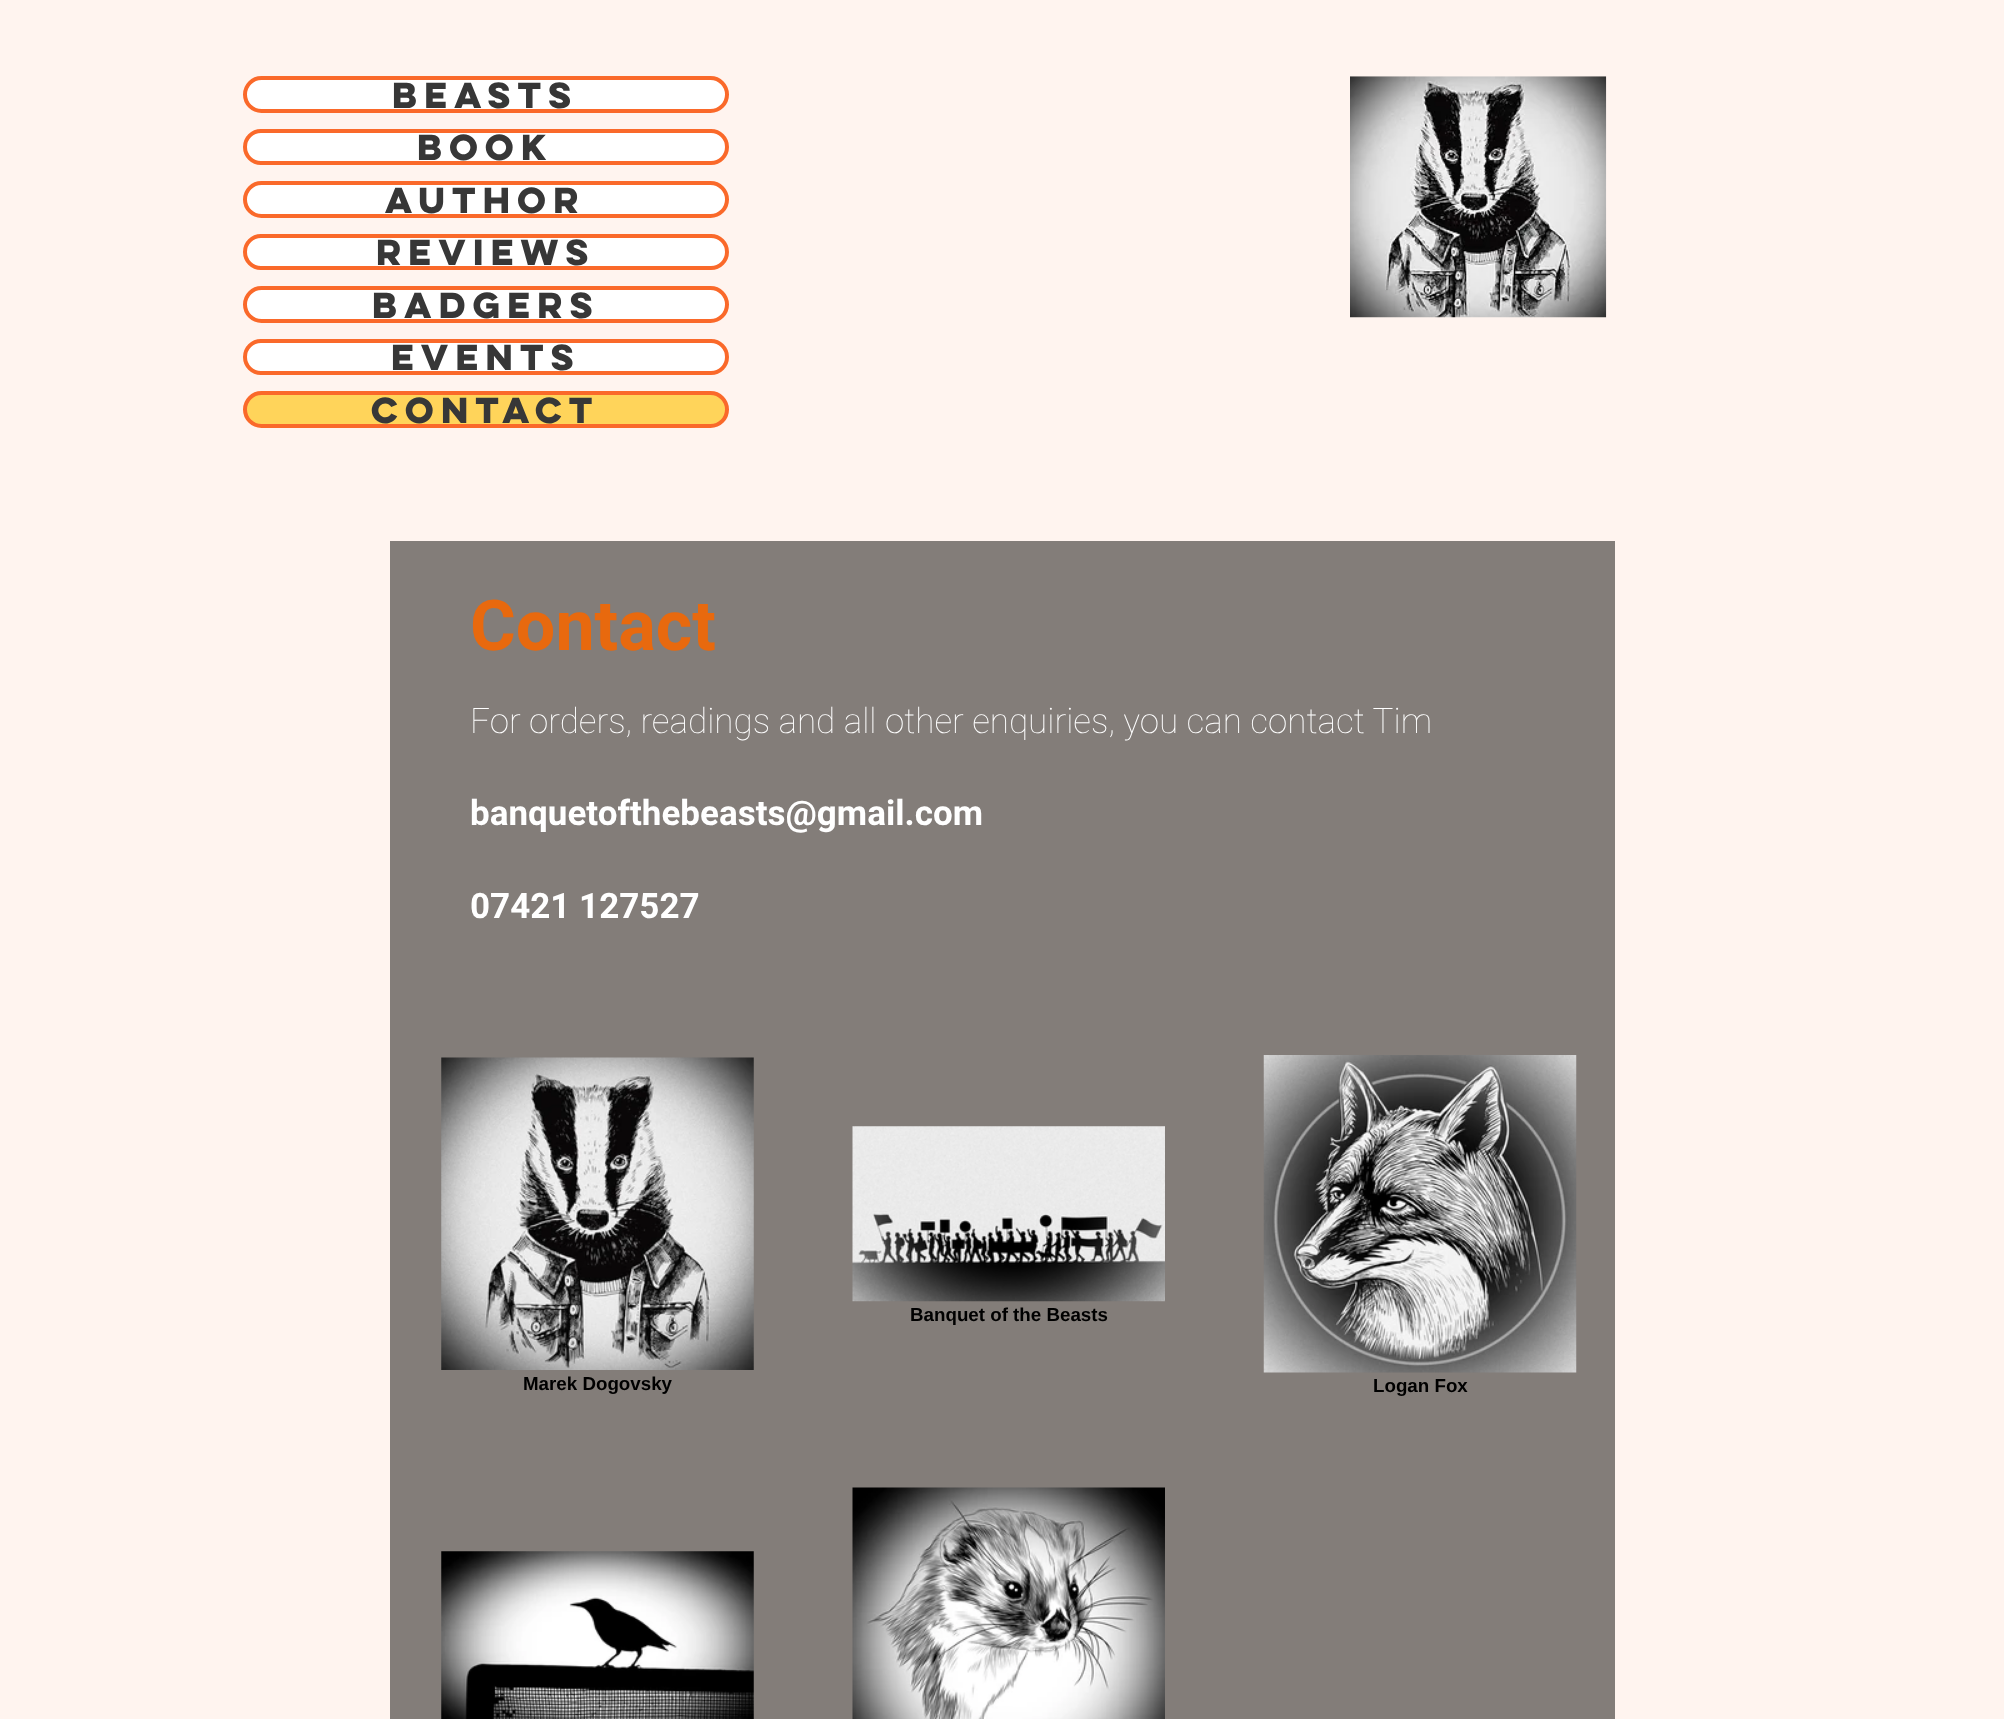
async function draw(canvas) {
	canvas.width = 2004;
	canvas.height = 1719;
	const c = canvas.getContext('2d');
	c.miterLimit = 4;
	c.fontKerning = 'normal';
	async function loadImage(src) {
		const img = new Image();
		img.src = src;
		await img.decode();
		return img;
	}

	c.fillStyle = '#fff4ef';
	c.fillRect(0, 0, 2004, 1719);
	c.fillStyle = '#fff';
	c.beginPath();
	c.roundRect(245, 78, 482, 33, 16.5);
	c.fill();
	c.strokeStyle = '#fa692a';
	c.lineWidth = 4;
	c.stroke();
	c.font = 'bold 32.5px "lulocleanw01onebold"';
	c.fillStyle = '#373737';
	c.fillText('BEASTS', 392, 108);
	c.fillStyle = '#fff';
	c.beginPath();
	c.roundRect(245, 131, 482, 32, 16);
	c.fill();
	c.stroke();
	c.fillStyle = '#373737';
	c.fillText('BOOK', 417, 160);
	c.fillStyle = '#fff';
	c.beginPath();
	c.roundRect(245, 183, 482, 33, 16.5);
	c.fill();
	c.stroke();
	c.fillStyle = '#373737';
	c.fillText('AUTHOR', 385, 213);
	c.fillStyle = '#fff';
	c.beginPath();
	c.roundRect(245, 236, 482, 32, 16);
	c.fill();
	c.stroke();
	c.fillStyle = '#373737';
	c.fillText('REVIEWS', 376, 265);
	c.fillStyle = '#fff';
	c.beginPath();
	c.roundRect(245, 288, 482, 33, 16.5);
	c.fill();
	c.stroke();
	c.fillStyle = '#373737';
	c.fillText('BADGERS', 372, 318);
	c.fillStyle = '#fff';
	c.beginPath();
	c.roundRect(245, 341, 482, 32, 16);
	c.fill();
	c.stroke();
	c.fillStyle = '#373737';
	c.fillText('EVENTS', 391, 370);
	c.fillStyle = '#ffd45a';
	c.beginPath();
	c.roundRect(245, 393, 482, 33, 16.5);
	c.fill();
	c.stroke();
	c.fillStyle = '#373737';
	c.fillText('CONTACT', 371, 423);
	c.drawImage(await loadImage('img1.png'), 1350, 76, 257, 242);
	c.fillStyle = '#837d79';
	c.fillRect(390, 541, 1225, 1178);
	c.font = 'bold 70px Roboto';
	c.fillStyle = '#e8690e';
	c.fillText('Contact', 470, 650);
	c.font = '100 35px Roboto';
	c.fillStyle = '#fff';
	c.fillText('For orders, readings and all other enquiries, you can contact Tim', 470, 733);
	c.font = 'bold 35px Roboto';
	c.fillText('banquetofthebeasts@gmail.com', 470, 825);
	c.fillText('07421 127527', 470, 918);
	c.drawImage(await loadImage('img2.png'), 852, 1126, 313, 176);
	c.font = 'bold 18.75px Liberation Sans';
	c.fillStyle = '#000';
	c.fillText('Banquet of the Beasts', 910, 1321);
	c.drawImage(await loadImage('img3.png'), 441, 1057, 313, 313);
	c.fillText('Marek Dogovsky', 523, 1390);
	c.drawImage(await loadImage('img4.png'), 1263, 1055, 314, 318);
	c.fillText('Logan Fox', 1373, 1392);
	c.drawImage(await loadImage('img5.png'), 441, 1551, 313, 168);
	c.drawImage(await loadImage('img6.png'), 852, 1487, 313, 232);
}

draw(document.querySelector('canvas'));
